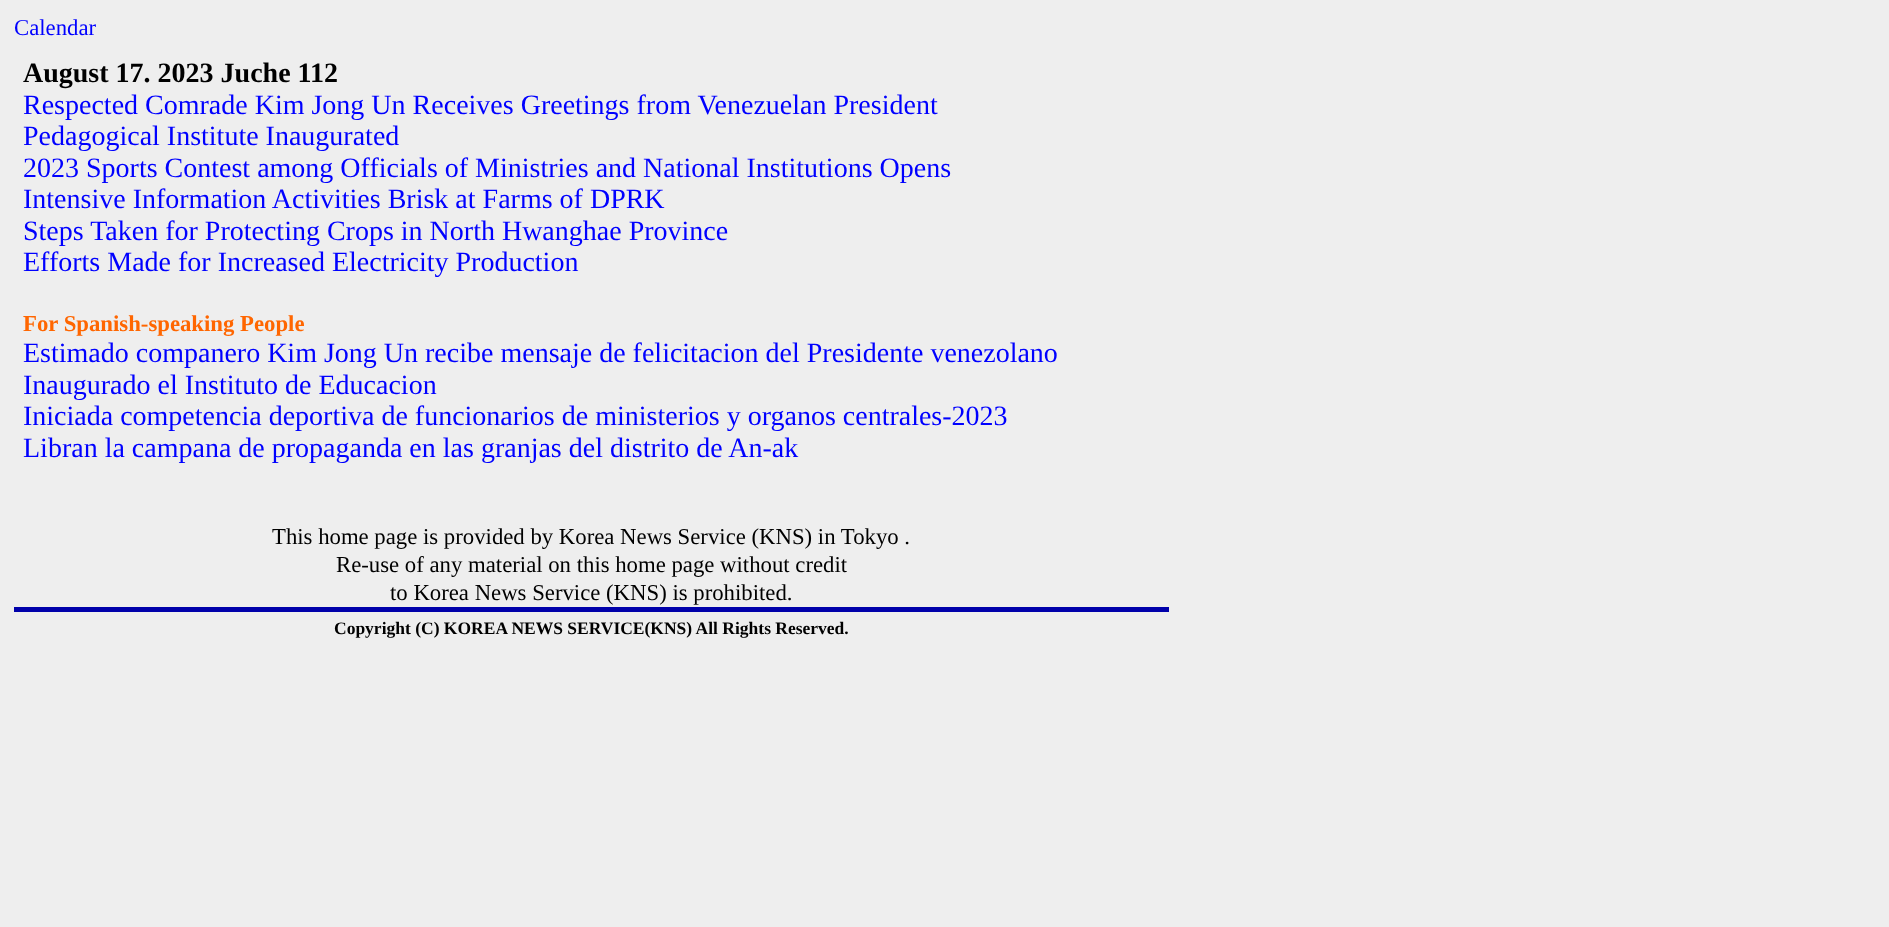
async function draw(canvas) {
	canvas.width = 1889;
	canvas.height = 927;
	const c = canvas.getContext('2d');
	c.miterLimit = 4;
	c.fontKerning = 'normal';

	c.fillStyle = '#eee';
	c.fillRect(0, 0, 1889, 927);
	c.font = '22.75px Liberation Serif';
	c.fillStyle = '#00f';
	c.fillText('Calendar', 14, 35);
	c.font = 'bold 28px Liberation Serif';
	c.fillStyle = '#000';
	c.fillText('August 17. 2023 Juche 112', 23, 82);
	c.font = '28px Liberation Serif';
	c.fillStyle = '#00f';
	for (const [text, x, y] of [
		['Respected Comrade Kim Jong Un Receives Greetings from Venezuelan President', 23, 114],
		['Pedagogical Institute Inaugurated', 23, 145],
		['2023 Sports Contest among Officials of Ministries and National Institutions Opens', 23, 177],
		['Intensive Information Activities Brisk at Farms of DPRK', 23, 208],
		['Steps Taken for Protecting Crops in North Hwanghae Province', 23, 240],
		['Efforts Made for Increased Electricity Production', 23, 271],
	]) {
		c.fillText(text, x, y);
	}
	c.font = 'bold 22.75px Liberation Serif';
	c.fillStyle = '#f60';
	c.fillText('For Spanish-speaking People', 23, 331);
	c.font = '28px Liberation Serif';
	c.fillStyle = '#00f';
	for (const [text, x, y] of [
		['Estimado companero Kim Jong Un recibe mensaje de felicitacion del Presidente venezolano', 23, 362],
		['Inaugurado el Instituto de Educacion', 23, 394],
		['Iniciada competencia deportiva de funcionarios de ministerios y organos centrales-2023', 23, 425],
		['Libran la campana de propaganda en las granjas del distrito de An-ak', 23, 457],
	]) {
		c.fillText(text, x, y);
	}
	c.font = '22.75px Liberation Serif';
	c.fillStyle = '#000';
	for (const [text, x, y] of [
		['This home page is provided by Korea News Service (KNS) in Tokyo .', 272, 544],
		['Re-use of any material on this home page without credit', 336, 572],
		['to Korea News Service (KNS) is prohibited.', 390, 600],
	]) {
		c.fillText(text, x, y);
	}
	c.fillStyle = '#00a';
	c.fillRect(14, 607, 1155, 5);
	c.font = 'bold 17.5px Liberation Serif';
	c.fillStyle = '#000';
	c.fillText('Copyright (C) KOREA NEWS SERVICE(KNS) All Rights Reserved.', 334, 634);
}

draw(document.querySelector('canvas'));
